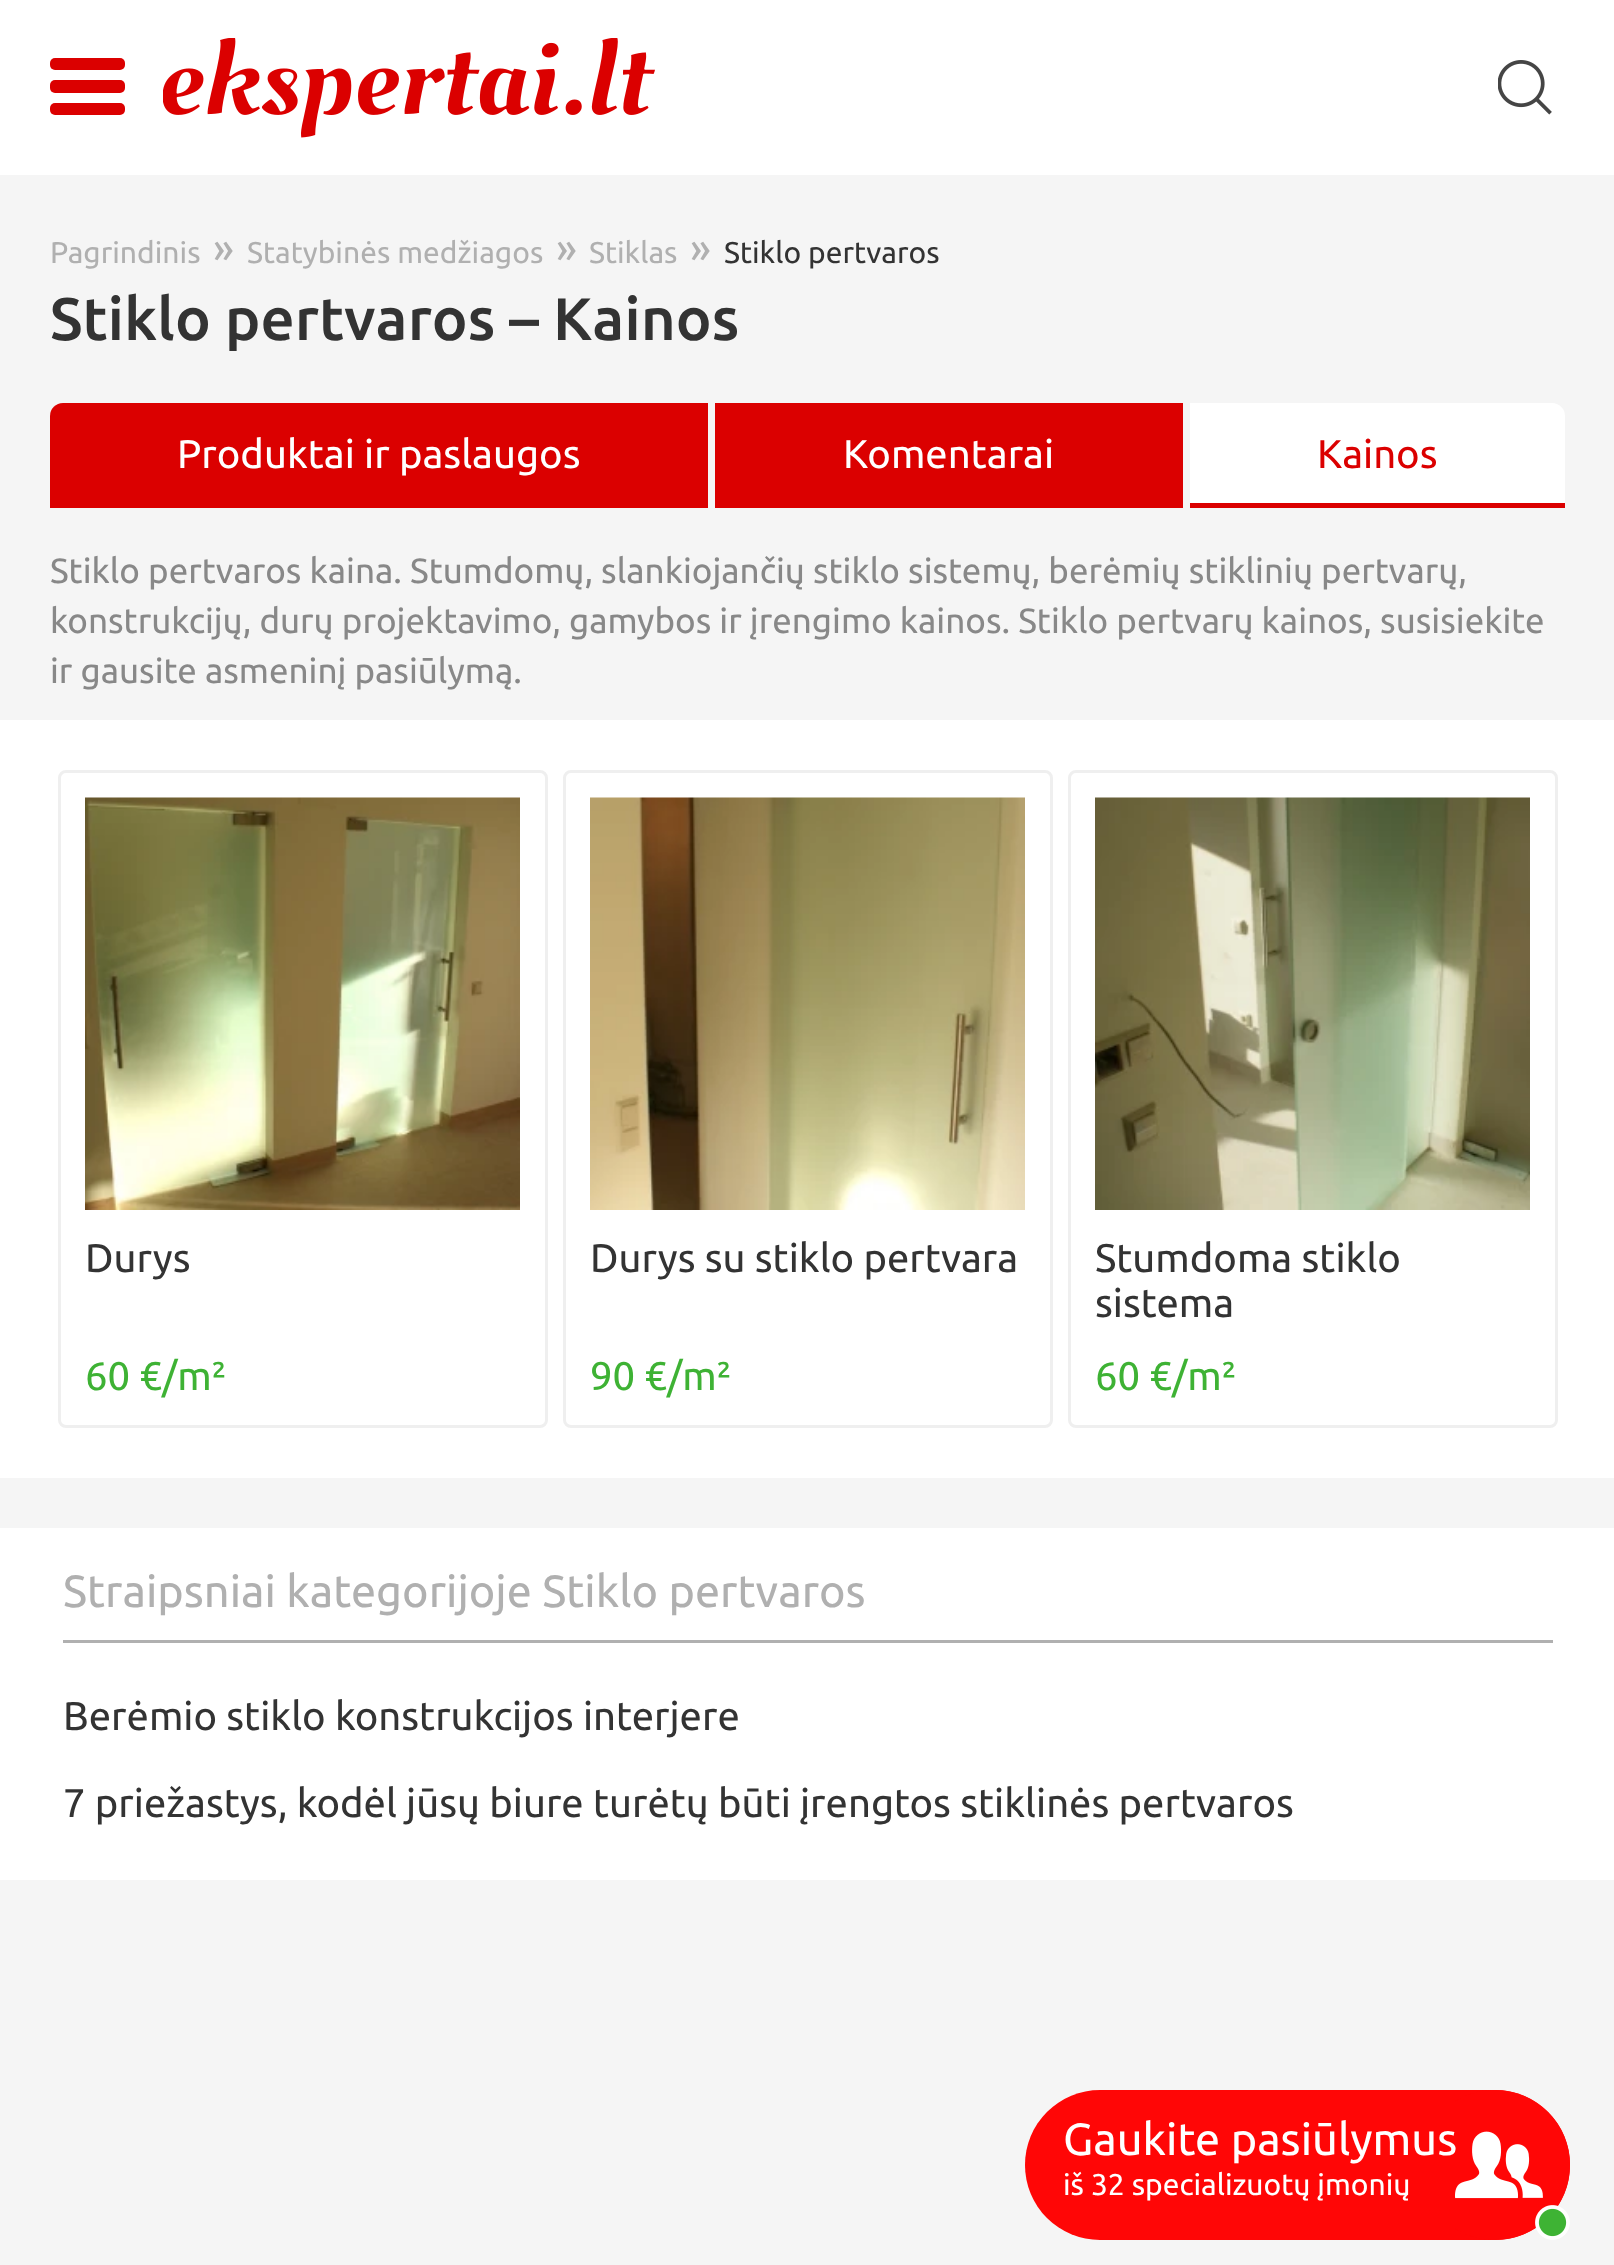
async function draw(canvas) {
	canvas.width = 1614;
	canvas.height = 2265;
	const c = canvas.getContext('2d');
	c.miterLimit = 4;
	c.fontKerning = 'normal';
	async function loadImage(src) {
		const img = new Image();
		img.src = src;
		await img.decode();
		return img;
	}

	c.fillStyle = '#f5f5f5';
	c.fillRect(0, 0, 1614, 2265);
	c.fillStyle = '#fff';
	c.fillRect(0, 0, 1614, 175);
	c.fillStyle = '#db0000';
	c.beginPath();
	c.roundRect(50, 80, 75, 13, 5);
	c.fill();
	c.beginPath();
	c.roundRect(50, 58, 75, 12, 5);
	c.fill();
	c.beginPath();
	c.roundRect(50, 103, 75, 12, 5);
	c.fill();
	c.drawImage(await loadImage('img1.png'), 163, 38, 492, 100);
	c.drawImage(await loadImage('img2.png'), 1498, 60, 54, 55);
	c.font = '30px Ubuntu';
	c.fillStyle = '#b0b0b0';
	c.fillText('Pagrindinis', 50, 263);
	c.font = '42px Ubuntu';
	c.fillText('»', 213, 263);
	c.font = '30px Ubuntu';
	c.fillText('Statybinės medžiagos', 247, 263);
	c.font = '42px Ubuntu';
	c.fillText('»', 556, 263);
	c.font = '30px Ubuntu';
	c.fillText('Stiklas', 589, 263);
	c.font = '42px Ubuntu';
	c.fillText('»', 690, 263);
	c.font = '30px Ubuntu';
	c.fillStyle = '#333';
	c.fillText('Stiklo pertvaros', 724, 263);
	c.font = '500 60px Ubuntu';
	c.fillText('Stiklo pertvaros – Kainos', 50, 340);
	c.fillStyle = '#db0000';
	c.beginPath();
	c.roundRect(50, 403, 658, 105, [13, 0, 0, 0]);
	c.fill();
	c.font = '40px Ubuntu';
	c.fillStyle = '#fff';
	c.fillText('Produktai ir paslaugos', 177, 468);
	c.fillStyle = '#db0000';
	c.fillRect(715, 403, 468, 105);
	c.fillStyle = '#fff';
	c.fillText('Komentarai', 843, 468);
	c.beginPath();
	c.roundRect(1190, 403, 375, 105, [0, 13, 0, 0]);
	c.fill();
	c.fillStyle = '#db0000';
	c.fillRect(1190, 503, 375, 5);
	c.fillText('Kainos', 1317, 468);
	c.font = '35px Ubuntu';
	c.fillStyle = '#888';
	for (const [text, x, y] of [
		['Stiklo pertvaros kaina. Stumdomų, slankiojančių stiklo sistemų, berėmių stiklinių pertvarų,', 50, 583],
		['konstrukcijų, durų projektavimo, gamybos ir įrengimo kainos. Stiklo pertvarų kainos, susisiekite', 50, 633],
		['ir gausite asmeninį pasiūlymą.', 50, 683],
	]) {
		c.fillText(text, x, y);
	}
	c.fillStyle = '#fff';
	c.fillRect(0, 720, 1614, 758);
	c.beginPath();
	c.roundRect(59.5, 771.5, 487, 655, 6.5);
	c.strokeStyle = '#efefef';
	c.lineWidth = 3;
	c.stroke();
	c.drawImage(await loadImage('img3.png'), 85, 797, 435, 413);
	c.font = '40px Ubuntu';
	c.fillStyle = '#333';
	c.fillText('Durys', 85, 1272);
	c.fillStyle = '#3eb234';
	c.fillText('60 €/m²', 85, 1390);
	c.beginPath();
	c.roundRect(564.5, 771.5, 487, 655, 6.5);
	c.stroke();
	c.drawImage(await loadImage('img4.png'), 590, 797, 435, 413);
	c.fillStyle = '#333';
	c.fillText('Durys su stiklo pertvara', 590, 1272);
	c.fillStyle = '#3eb234';
	c.fillText('90 €/m²', 590, 1390);
	c.beginPath();
	c.roundRect(1069.5, 771.5, 487, 655, 6.5);
	c.stroke();
	c.drawImage(await loadImage('img5.png'), 1095, 797, 435, 413);
	c.fillStyle = '#333';
	c.fillText('Stumdoma stiklo', 1095, 1272);
	c.fillText('sistema', 1095, 1317);
	c.fillStyle = '#3eb234';
	c.fillText('60 €/m²', 1095, 1390);
	c.fillStyle = '#fff';
	c.fillRect(0, 1528, 1614, 352);
	c.fillStyle = '#b0b0b0';
	c.fillRect(63, 1640, 1490, 3);
	c.font = '45px Ubuntu';
	c.fillText('Straipsniai kategorijoje Stiklo pertvaros', 63, 1607);
	c.font = '40px Ubuntu';
	c.fillStyle = '#333';
	c.fillText('Berėmio stiklo konstrukcijos interjere', 63, 1730);
	c.fillText('7 priežastys, kodėl jūsų biure turėtų būti įrengtos stiklinės pertvaros', 63, 1817);
	c.fillStyle = '#ff0606';
	c.beginPath();
	c.roundRect(1025, 2090, 545, 150, 75);
	c.fill();
	c.drawImage(await loadImage('img6.png'), 1455, 2090, 115, 150);
	c.font = '45px Ubuntu';
	c.fillStyle = '#fff';
	c.fillText('Gaukite pasiūlymus', 1063, 2155);
	c.font = '30px Ubuntu';
	c.fillText('iš 32 specializuotų įmonių', 1063, 2195);
}

draw(document.querySelector('canvas'));
